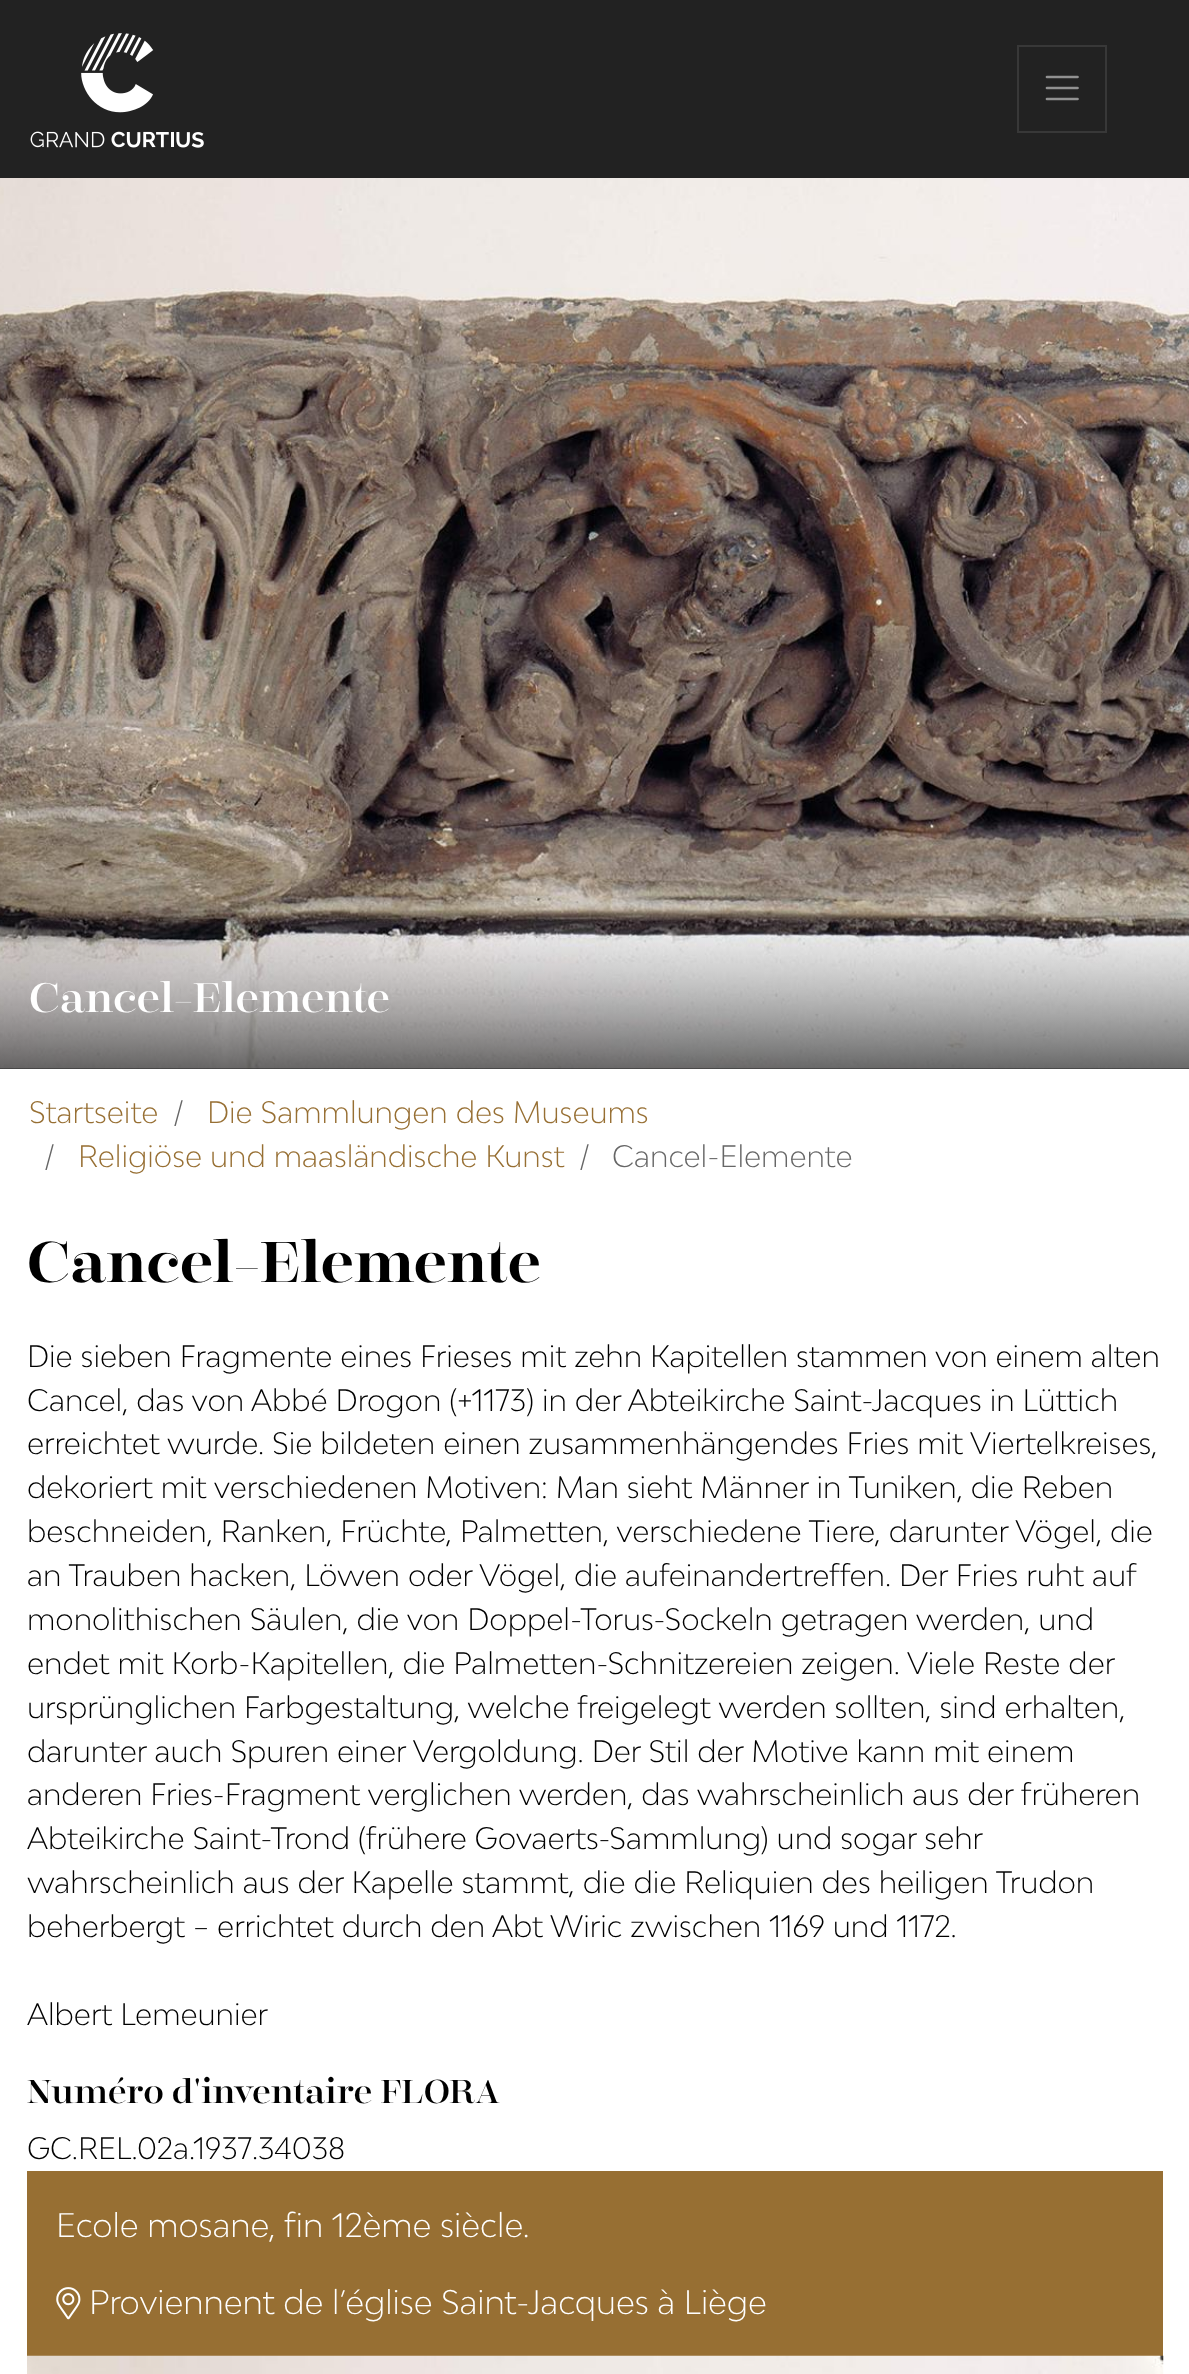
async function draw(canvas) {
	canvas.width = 1189;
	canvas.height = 2374;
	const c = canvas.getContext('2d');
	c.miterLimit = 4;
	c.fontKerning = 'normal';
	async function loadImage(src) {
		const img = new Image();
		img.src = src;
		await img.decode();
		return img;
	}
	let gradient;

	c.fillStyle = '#fff';
	c.fillRect(0, 0, 1189, 2374);
	c.fillStyle = '#222';
	c.fillRect(0, 1068, 1189, 1);
	c.fillRect(0, 0, 1189, 178);
	c.drawImage(await loadImage('img1.png'), 81, 33, 73, 80);
	c.drawImage(await loadImage('img2.png'), 30, 131, 174, 17);
	c.strokeStyle = '#383838';
	c.lineWidth = 2;
	c.strokeRect(1018, 46, 88, 86);
	c.beginPath();
	c.moveTo(1047, 77);
	c.lineTo(1077.5, 77);
	c.moveTo(1047, 88);
	c.lineTo(1077.5, 88);
	c.moveTo(1047, 99);
	c.lineTo(1077.5, 99);
	c.strokeStyle = '#919191';
	c.lineWidth = 2.7;
	c.lineCap = 'round';
	c.stroke();
	c.drawImage(await loadImage('img3.png'), 0, 178, 1189, 891);
	gradient = c.createLinearGradient(595, 1127, 595, 889);
	gradient.addColorStop(0, '#222');
	gradient.addColorStop(0.19, '#222222bd');
	gradient.addColorStop(0.34, '#2222228a');
	gradient.addColorStop(0.47, '#22222261');
	gradient.addColorStop(0.56, '#22222247');
	gradient.addColorStop(0.65, '#22222230');
	gradient.addColorStop(0.73, '#2222221f');
	gradient.addColorStop(0.8, '#22222212');
	gradient.addColorStop(0.86, '#2222220a');
	gradient.addColorStop(0.91, '#22222205');
	gradient.addColorStop(0.95, '#22222203');
	gradient.addColorStop(0.98, '#22222200');
	gradient.addColorStop(1, '#22222200');
	c.fillStyle = gradient;
	c.fillRect(0, 911, 1189, 158);
	c.font = '41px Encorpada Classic';
	c.fillStyle = '#fff';
	c.fillText('Cancel-Elemente', 29, 1012);
	c.font = '300 29.25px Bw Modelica';
	c.fillStyle = '#976f33';
	c.fillText('Startseite', 29, 1123);
	c.fillStyle = '#666';
	c.fillText('/', 173, 1123);
	c.fillStyle = '#976f33';
	c.fillText('Die Sammlungen des Museums', 207, 1123);
	c.fillStyle = '#666';
	c.fillText('/', 44, 1167);
	c.fillStyle = '#976f33';
	c.fillText('Religiöse und maasländische Kunst', 78, 1167);
	c.fillStyle = '#666';
	c.fillText('/', 579, 1167);
	c.fillText('Cancel-Elemente', 612, 1167);
	c.font = '600 57px Encorpada Classic';
	c.fillStyle = '#000';
	c.fillText('Cancel-Elemente', 27, 1282);
	c.font = '300 29.25px Bw Modelica';
	for (const [text, x, y] of [
		['Die sieben Fragmente eines Frieses mit zehn Kapitellen stammen von einem alten', 27, 1367],
		['Cancel, das von Abbé Drogon (+1173) in der Abteikirche Saint-Jacques in Lüttich', 27, 1411],
		['erreichtet wurde. Sie bildeten einen zusammenhängendes Fries mit Viertelkreises,', 27, 1454],
		['dekoriert mit verschiedenen Motiven: Man sieht Männer in Tuniken, die Reben', 27, 1498],
		['beschneiden, Ranken, Früchte, Palmetten, verschiedene Tiere, darunter Vögel, die', 27, 1542],
		['an Trauben hacken, Löwen oder Vögel, die aufeinandertreffen. Der Fries ruht auf', 27, 1586],
		['monolithischen Säulen, die von Doppel-Torus-Sockeln getragen werden, und', 27, 1630],
		['endet mit Korb-Kapitellen, die Palmetten-Schnitzereien zeigen. Viele Reste der', 27, 1674],
		['ursprünglichen Farbgestaltung, welche freigelegt werden sollten, sind erhalten,', 27, 1718],
		['darunter auch Spuren einer Vergoldung. Der Stil der Motive kann mit einem', 27, 1762],
		['anderen Fries-Fragment verglichen werden, das wahrscheinlich aus der früheren', 27, 1805],
		['Abteikirche Saint-Trond (frühere Govaerts-Sammlung) und sogar sehr', 27, 1849],
		['wahrscheinlich aus der Kapelle stammt, die die Reliquien des heiligen Trudon', 27, 1893],
		['beherbergt – errichtet durch den Abt Wiric zwischen 1169 und 1172.', 27, 1937],
		['Albert Lemeunier', 27, 2025],
	]) {
		c.fillText(text, x, y);
	}
	c.font = '32.9px Encorpada Classic';
	c.fillText('Numéro d\'inventaire FLORA', 27, 2103);
	c.font = '300 29.25px Bw Modelica';
	c.fillText('GC.REL.02a.1937.34038', 27, 2159);
	c.fillStyle = '#976f33';
	c.fillRect(27, 2171, 1136, 185);
	c.font = '300 32.2px Bw Modelica';
	c.fillStyle = '#fff';
	c.fillText('Ecole mosane, fin 12ème siècle.', 56, 2237);
	c.drawImage(await loadImage('img4.png'), 56, 2287, 25, 33);
	c.fillText('Proviennent de l’église Saint-Jacques à Liège', 89, 2314);
	c.drawImage(await loadImage('img5.png'), 27, 2355, 1137, 19);
}

draw(document.querySelector('canvas'));
